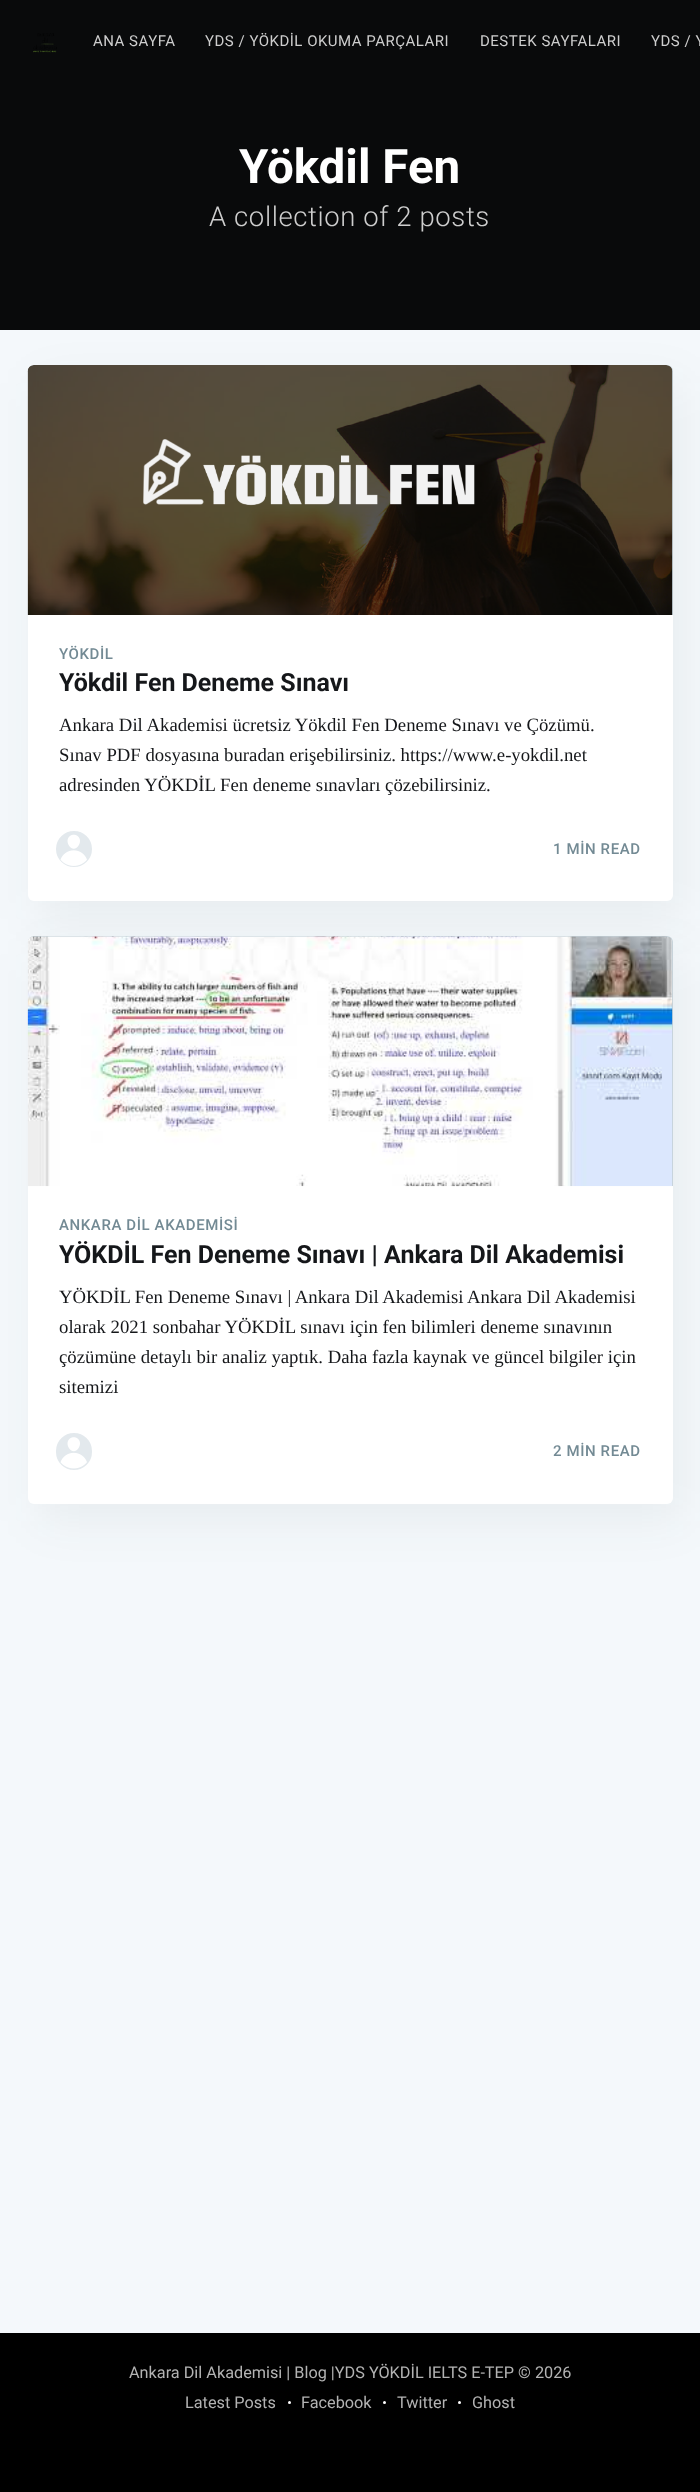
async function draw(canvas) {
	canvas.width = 700;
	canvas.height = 2492;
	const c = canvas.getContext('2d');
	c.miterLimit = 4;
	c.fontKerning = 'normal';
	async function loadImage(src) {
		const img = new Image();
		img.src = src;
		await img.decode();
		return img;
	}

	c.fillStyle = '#f4f8fb';
	c.fillRect(0, 0, 700, 2492);
	c.fillStyle = '#090a0b';
	c.fillRect(0, 0, 700, 330);
	c.drawImage(await loadImage('img1.png'), 33, 33, 24, 20);
	c.letterSpacing = '0.5px';
	c.font = '15px Roboto';
	c.fillStyle = '#cecece';
	for (const [text, x, y] of [
		['ANA SAYFA', 93, 46],
		['YDS / YÖKDİL OKUMA PARÇALARI', 205, 46],
		['DESTEK SAYFALARI', 480, 46],
		['YDS / Y', 651, 46],
	]) {
		c.fillText(text, x, y);
	}
	c.letterSpacing = '0px';
	c.font = 'bold 47.5px Roboto';
	c.fillStyle = '#fff';
	c.fillText('Yökdil Fen', 239, 183);
	c.letterSpacing = '0.6px';
	c.font = '300 27.5px Roboto';
	c.fillStyle = '#cecece';
	c.fillText('A collection of 2 posts', 209, 226);
	c.fillStyle = '#272c310f';
	c.filter = 'blur(24px)';
	c.beginPath();
	c.roundRect(38, 383, 645, 536, 6);
	c.fill();
	c.filter = 'none';
	c.fillStyle = '#fff';
	c.beginPath();
	c.roundRect(28, 365, 645, 536, 6);
	c.fill();
	c.fillStyle = '#c5d2d9';
	c.beginPath();
	c.roundRect(28, 365, 645, 250, [6, 6, 0, 0]);
	c.fill();
	c.drawImage(await loadImage('img2.png'), 27, 365, 646, 250);
	c.font = '500 15px Roboto';
	c.fillStyle = '#738a94';
	c.fillText('YÖKDİL', 59, 659);
	c.letterSpacing = '0px';
	c.font = 'bold 25px Roboto';
	c.fillStyle = '#15171a';
	c.fillText('Yökdil Fen Deneme Sınavı', 59, 691);
	c.font = '18.75px Liberation Serif';
	for (const [text, x, y] of [
		['Ankara Dil Akademisi ücretsiz Yökdil Fen Deneme Sınavı ve Çözümü.', 59, 731],
		['Sınav PDF dosyasına buradan erişebilirsiniz. https://www.e-yokdil.net', 59, 761],
		['adresinden YÖKDİL Fen deneme sınavları çözebilirsiniz.', 59, 791],
	]) {
		c.fillText(text, x, y);
	}
	c.fillStyle = '#e3e9ed';
	c.beginPath();
	c.arc(74, 849, 19.5, 0, 2 * Math.PI);
	c.fill();
	c.strokeStyle = '#fff';
	c.lineWidth = 3;
	c.stroke();
	c.drawImage(await loadImage('img3.png'), 60, 834, 27, 32);
	c.letterSpacing = '0.6px';
	c.font = '500 15px Roboto';
	c.fillStyle = '#738a94';
	c.fillText('1 MİN READ', 553, 854);
	c.fillStyle = '#272c310f';
	c.filter = 'blur(24px)';
	c.beginPath();
	c.roundRect(38, 954, 645, 567, 6);
	c.fill();
	c.filter = 'none';
	c.fillStyle = '#fff';
	c.beginPath();
	c.roundRect(28, 936, 645, 568, 6);
	c.fill();
	c.fillStyle = '#c5d2d9';
	c.beginPath();
	c.roundRect(28, 936, 645, 250, [6, 6, 0, 0]);
	c.fill();
	c.drawImage(await loadImage('img4.png'), 27, 936, 646, 251);
	c.fillStyle = '#738a94';
	c.fillText('ANKARA DİL AKADEMİSİ', 59, 1230);
	c.letterSpacing = '0px';
	c.font = 'bold 25px Roboto';
	c.fillStyle = '#15171a';
	c.fillText('YÖKDİL Fen Deneme Sınavı | Ankara Dil Akademisi', 59, 1263);
	c.font = '18.75px Liberation Serif';
	for (const [text, x, y] of [
		['YÖKDİL Fen Deneme Sınavı | Ankara Dil Akademisi', 59, 1303],
		['Ankara Dil Akademisi', 467, 1303],
		['olarak 2021 sonbahar YÖKDİL sınavı için fen bilimleri deneme sınavının', 59, 1333],
		['çözümüne detaylı bir analiz yaptık. Daha fazla kaynak ve güncel bilgiler için', 59, 1363],
		['sitemizi', 59, 1393],
	]) {
		c.fillText(text, x, y);
	}
	c.fillStyle = '#e3e9ed';
	c.beginPath();
	c.roundRect(54.5, 1431.5, 39, 40, 19.5);
	c.fill();
	c.stroke();
	c.drawImage(await loadImage('img5.png'), 60, 1437, 27, 32);
	c.letterSpacing = '0.6px';
	c.font = '500 15px Roboto';
	c.fillStyle = '#738a94';
	c.fillText('2 MİN READ', 553, 1456);
	c.fillStyle = '#000';
	c.fillRect(0, 2333, 700, 159);
	c.letterSpacing = '0px';
	c.font = '16.25px Roboto';
	c.fillStyle = '#b3b3b3';
	c.fillText('Ankara Dil Akademisi | Blog |YDS YÖKDİL IELTS E-TEP © 2026', 129, 2378);
	c.fillText('Latest Posts', 185, 2408);
	c.fillStyle = '#fff';
	c.beginPath();
	c.arc(289.5, 2402.5, 1.5, 0, 2 * Math.PI);
	c.fill();
	c.fillStyle = '#b3b3b3';
	c.fillText('Facebook', 301, 2408);
	c.fillStyle = '#fff';
	c.beginPath();
	c.arc(384.5, 2402.5, 1.5, 0, 2 * Math.PI);
	c.fill();
	c.fillStyle = '#b3b3b3';
	c.fillText('Twitter', 397, 2408);
	c.fillStyle = '#fff';
	c.beginPath();
	c.arc(459.5, 2402.5, 1.5, 0, 2 * Math.PI);
	c.fill();
	c.fillStyle = '#b3b3b3';
	c.fillText('Ghost', 472, 2408);
}

draw(document.querySelector('canvas'));
